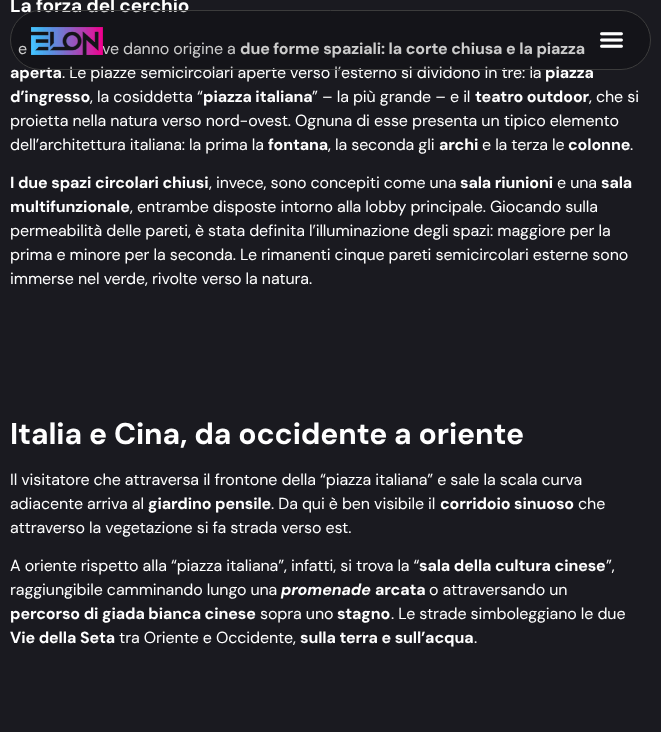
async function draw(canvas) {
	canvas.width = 661;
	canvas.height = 732;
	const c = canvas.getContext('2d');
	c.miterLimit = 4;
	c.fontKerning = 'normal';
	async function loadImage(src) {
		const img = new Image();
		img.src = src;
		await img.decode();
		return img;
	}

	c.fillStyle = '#1a1a20';
	c.fillRect(0, 0, 661, 732);
	c.letterSpacing = '-0.1px';
	c.font = 'bold 19px DM Sans';
	c.fillStyle = '#fff';
	c.fillText('La forza del cerchio', 10, 12);
	c.font = '16px DM Sans';
	c.fillText('e', 18, 54);
	c.fillText('ve danno origine a', 102, 54);
	c.font = 'bold 16px DM Sans';
	c.fillText('due forme spaziali: la corte chiusa e la piazza', 240, 54);
	c.fillText('aperta', 10, 78);
	c.font = '16px DM Sans';
	c.fillText('. Le piazze semicircolari aperte verso l’esterno si dividono in tre: la', 62, 78);
	c.font = 'bold 16px DM Sans';
	c.fillText('piazza', 545, 78);
	c.fillText('d’ingresso', 10, 102);
	c.font = '16px DM Sans';
	c.fillText(', la cosiddetta “', 90, 102);
	c.font = 'bold 16px DM Sans';
	c.fillText('piazza italiana', 203, 102);
	c.font = '16px DM Sans';
	c.fillText('” – la più grande – e il', 312, 102);
	c.font = 'bold 16px DM Sans';
	c.fillText('teatro outdoor', 475, 102);
	c.font = '16px DM Sans';
	for (const [text, x, y] of [
		[', che si', 589, 102],
		['proietta nella natura verso nord-ovest. Ognuna di esse presenta un tipico elemento', 10, 126],
		['dell’architettura italiana: la prima la', 10, 150],
	]) {
		c.fillText(text, x, y);
	}
	c.font = 'bold 16px DM Sans';
	c.fillText('fontana', 268, 150);
	c.font = '16px DM Sans';
	c.fillText(', la seconda gli', 328, 150);
	c.font = 'bold 16px DM Sans';
	c.fillText('archi', 439, 150);
	c.font = '16px DM Sans';
	c.fillText('e la terza le', 482, 150);
	c.font = 'bold 16px DM Sans';
	c.fillText('colonne', 568, 150);
	c.font = '16px DM Sans';
	c.fillText('.', 630, 150);
	c.font = 'bold 16px DM Sans';
	c.fillText('I due spazi circolari chiusi', 10, 188);
	c.font = '16px DM Sans';
	c.fillText(', invece, sono concepiti come una', 209, 188);
	c.font = 'bold 16px DM Sans';
	c.fillText('sala riunioni', 460, 188);
	c.font = '16px DM Sans';
	c.fillText('e una', 557, 188);
	c.font = 'bold 16px DM Sans';
	c.fillText('sala', 601, 188);
	c.fillText('multifunzionale', 10, 212);
	c.font = '16px DM Sans';
	for (const [text, x, y] of [
		[', entrambe disposte intorno alla lobby principale. Giocando sulla', 130, 212],
		['permeabilità delle pareti, è stata definita l’illuminazione degli spazi: maggiore per la', 10, 236],
		['prima e minore per la seconda. Le rimanenti cinque pareti semicircolari esterne sono', 10, 260],
		['immerse nel verde, rivolte verso la natura.', 10, 284],
	]) {
		c.fillText(text, x, y);
	}
	c.font = 'bold 30px DM Sans';
	c.fillText('Italia e Cina, da occidente a oriente', 10, 444);
	c.font = '16px DM Sans';
	c.fillText('Il visitatore che attraversa il frontone della “piazza italiana” e sale la scala curva', 10, 485);
	c.fillText('adiacente arriva al', 10, 509);
	c.font = 'bold 16px DM Sans';
	c.fillText('giardino pensile', 148, 509);
	c.font = '16px DM Sans';
	c.fillText('. Da qui è ben visibile il', 271, 509);
	c.font = 'bold 16px DM Sans';
	c.fillText('corridoio sinuoso', 440, 509);
	c.font = '16px DM Sans';
	for (const [text, x, y] of [
		['che', 578, 509],
		['attraverso la vegetazione si fa strada verso est.', 10, 533],
		['A oriente rispetto alla “piazza italiana”, infatti, si trova la “', 10, 571],
	]) {
		c.fillText(text, x, y);
	}
	c.font = 'bold 16px DM Sans';
	c.fillText('sala della cultura cinese', 419, 571);
	c.font = '16px DM Sans';
	c.fillText('”,', 606, 571);
	c.fillText('raggiungibile camminando lungo una', 10, 595);
	c.font = 'italic bold 16px DM Sans';
	c.fillText('promenade', 281, 595);
	c.font = 'bold 16px DM Sans';
	c.fillText('arcata', 375, 595);
	c.font = '16px DM Sans';
	c.fillText('o attraversando un', 429, 595);
	c.font = 'bold 16px DM Sans';
	c.fillText('percorso di giada bianca cinese', 10, 619);
	c.font = '16px DM Sans';
	c.fillText('sopra uno', 260, 619);
	c.font = 'bold 16px DM Sans';
	c.fillText('stagno', 337, 619);
	c.font = '16px DM Sans';
	c.fillText('. Le strade simboleggiano le due', 391, 619);
	c.font = 'bold 16px DM Sans';
	c.fillText('Vie della Seta', 10, 643);
	c.font = '16px DM Sans';
	c.fillText('tra Oriente e Occidente,', 119, 643);
	c.font = 'bold 16px DM Sans';
	c.fillText('sulla terra e sull’acqua', 300, 643);
	c.font = '16px DM Sans';
	c.fillText('.', 474, 643);
	c.fillStyle = '#00000033';
	c.beginPath();
	c.roundRect(10.5, 10.5, 640, 59, 29.5);
	c.fill();
	c.strokeStyle = '#3c3c3c';
	c.stroke();
	c.drawImage(await loadImage('img1.png'), 31, 27, 72, 28);
	c.drawImage(await loadImage('img2.png'), 600, 32, 23, 16);
}

draw(document.querySelector('canvas'));
